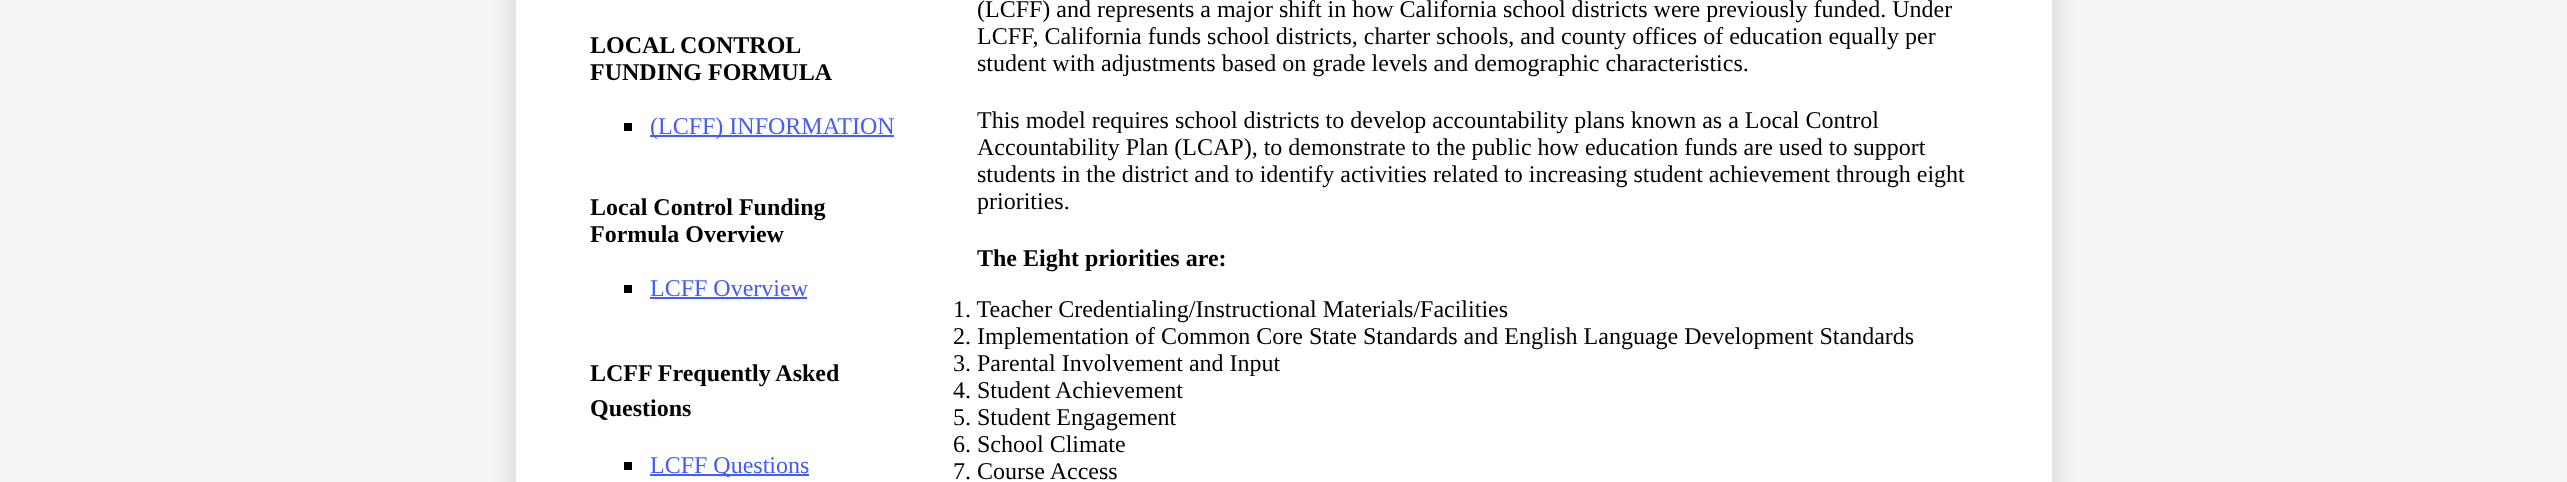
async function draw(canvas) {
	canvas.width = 2567;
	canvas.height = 482;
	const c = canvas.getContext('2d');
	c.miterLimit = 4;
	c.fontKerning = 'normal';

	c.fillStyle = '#f5f5f5';
	c.fillRect(0, 0, 2567, 482);
	c.fillStyle = '#00000026';
	c.filter = 'blur(12px)';
	c.beginPath();
	c.rect(516, -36, 1536, 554);
	c.fill();
	c.filter = 'none';
	c.fillStyle = '#fff';
	c.fillRect(516, 0, 1536, 482);
	c.font = 'bold 24px Liberation Serif';
	c.fillStyle = '#000';
	c.fillText('LOCAL CONTROL', 590, 53);
	c.fillText('FUNDING FORMULA', 590, 80);
	c.fillRect(624, 123, 8, 8);
	c.fillStyle = '#445bff';
	c.fillRect(650, 135, 244, 2);
	c.font = '24px Liberation Serif';
	c.fillText('(LCFF) INFORMATION', 650, 134);
	c.font = 'bold 24px Liberation Serif';
	c.fillStyle = '#000';
	c.fillText('Local Control Funding', 590, 215);
	c.fillText('Formula Overview', 590, 242);
	c.fillRect(624, 285, 8, 8);
	c.font = '24px Liberation Serif';
	c.fillStyle = '#445bff';
	c.fillText('LCFF Overview', 650, 296);
	c.fillRect(650, 297, 157, 2);
	c.font = 'bold 24px Liberation Serif';
	c.fillStyle = '#000';
	c.fillText('LCFF Frequently Asked', 590, 381);
	c.fillText('Questions', 590, 416);
	c.fillRect(624, 462, 8, 8);
	c.fillStyle = '#445bff';
	c.fillRect(650, 474, 159, 2);
	c.font = '24px Liberation Serif';
	c.fillText('LCFF Questions', 650, 473);
	c.fillStyle = '#000';
	for (const [text, x, y] of [
		['(LCFF) and represents a major shift in how California school districts were previously funded. Under', 977, 17],
		['LCFF, California funds school districts, charter schools, and county offices of education equally per', 977, 44],
		['student with adjustments based on grade levels and demographic characteristics.', 977, 71],
		['This model requires school districts to develop accountability plans known as a Local Control', 977, 128],
		['Accountability Plan (LCAP), to demonstrate to the public how education funds are used to support', 977, 155],
		['students in the district and to identify activities related to increasing student achievement through eight', 977, 182],
		['priorities.', 977, 209],
	]) {
		c.fillText(text, x, y);
	}
	c.font = 'bold 24px Liberation Serif';
	c.fillText('The Eight priorities are:', 977, 266);
	c.font = '24px Liberation Serif';
	for (const [text, x, y] of [
		['1. Teacher Credentialing/Instructional Materials/Facilities', 953, 317],
		['2. Implementation of Common Core State Standards and English Language Development Standards', 953, 344],
		['3. Parental Involvement and Input', 953, 371],
		['4. Student Achievement', 953, 398],
		['5. Student Engagement', 953, 425],
		['6. School Climate', 953, 452],
		['7. Course Access', 953, 479],
	]) {
		c.fillText(text, x, y);
	}
}

draw(document.querySelector('canvas'));
